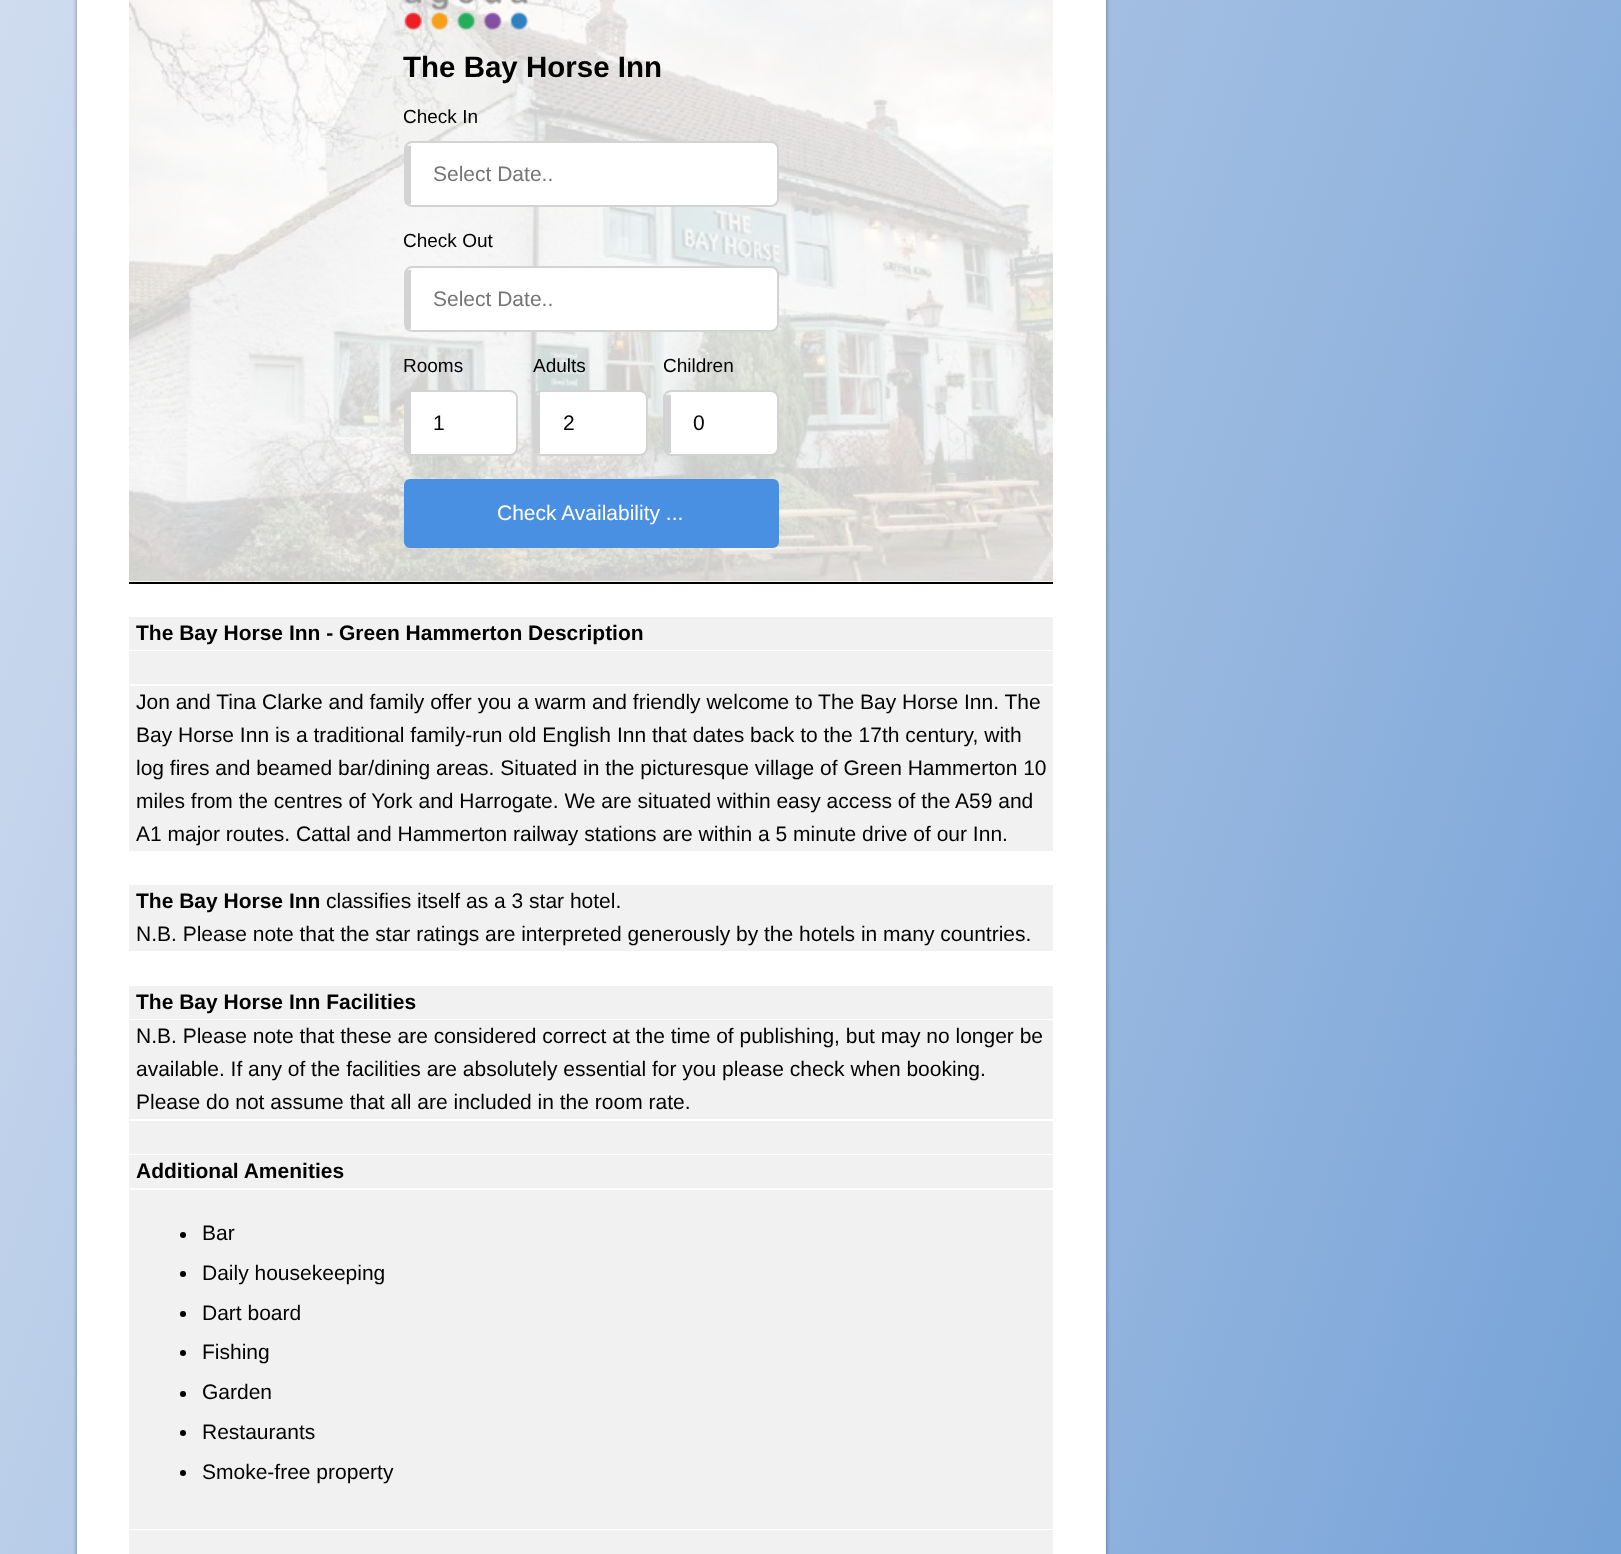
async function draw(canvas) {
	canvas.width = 1621;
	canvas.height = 1554;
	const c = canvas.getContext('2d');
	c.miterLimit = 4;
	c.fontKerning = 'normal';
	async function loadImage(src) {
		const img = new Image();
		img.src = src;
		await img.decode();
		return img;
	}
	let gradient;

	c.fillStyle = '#fff';
	c.fillRect(0, 0, 1621, 1554);
	gradient = c.createLinearGradient(-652, 305, 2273, 1270);
	gradient.addColorStop(0, '#e6ecf6');
	gradient.addColorStop(0.09, '#dae4f2');
	gradient.addColorStop(0.18, '#cedbef');
	gradient.addColorStop(0.27, '#c2d3eb');
	gradient.addColorStop(0.36, '#b5cbe7');
	gradient.addColorStop(0.45, '#a9c3e4');
	gradient.addColorStop(0.55, '#9ebce1');
	gradient.addColorStop(0.64, '#92b4de');
	gradient.addColorStop(0.73, '#84abdb');
	gradient.addColorStop(0.82, '#76a3d7');
	gradient.addColorStop(0.91, '#669ad4');
	gradient.addColorStop(1, '#5692d0');
	c.fillStyle = gradient;
	c.fillRect(0, 0, 1621, 1554);
	c.fillStyle = '#00000066';
	c.filter = 'blur(2px)';
	c.beginPath();
	c.roundRect(77, -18, 1029, 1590, 12);
	c.fill();
	c.filter = 'none';
	c.fillStyle = '#fff';
	c.fillRect(77, 0, 1029, 1554);
	c.fillStyle = '#000';
	c.fillRect(129, 582, 924, 2);
	c.drawImage(await loadImage('img1.png'), 129, 0, 924, 582);
	c.drawImage(await loadImage('img2.png'), 403, 0, 126, 30);
	c.font = 'bold 29.5px Liberation Sans';
	c.fillText('The Bay Horse Inn', 403, 77);
	c.font = '19px Liberation Sans';
	c.fillText('Check In', 403, 123);
	c.fillStyle = '#fff';
	c.beginPath();
	c.moveTo(411, 142);
	c.lineTo(771, 142);
	c.bezierCurveTo(774, 142, 777, 145, 777, 148);
	c.lineTo(777, 200);
	c.bezierCurveTo(777, 203, 774, 206, 771, 206);
	c.lineTo(411, 206);
	c.closePath();
	c.fill();
	c.beginPath();
	c.roundRect(405, 142, 373, 64, 7);
	c.strokeStyle = '#d3d3d3';
	c.lineWidth = 2;
	c.stroke();
	c.fillStyle = '#d3d3d3';
	c.fillRect(405, 146, 6, 58);
	c.font = '21px Liberation Sans';
	c.fillStyle = '#757575';
	c.fillText('Select Date..', 433, 181);
	c.font = '19px Liberation Sans';
	c.fillStyle = '#000';
	c.fillText('Check Out', 403, 247);
	c.fillStyle = '#fff';
	c.beginPath();
	c.moveTo(411, 267);
	c.lineTo(771, 267);
	c.bezierCurveTo(774, 267, 777, 270, 777, 273);
	c.lineTo(777, 324);
	c.bezierCurveTo(777, 327, 774, 330, 771, 330);
	c.lineTo(411, 330);
	c.closePath();
	c.fill();
	c.beginPath();
	c.roundRect(405, 267, 373, 64, 7);
	c.stroke();
	c.fillStyle = '#d3d3d3';
	c.fillRect(405, 270, 6, 59);
	c.font = '21px Liberation Sans';
	c.fillStyle = '#757575';
	c.fillText('Select Date..', 433, 306);
	c.font = '19px Liberation Sans';
	c.fillStyle = '#000';
	c.fillText('Rooms', 403, 372);
	c.fillStyle = '#fff';
	c.beginPath();
	c.moveTo(411, 392);
	c.lineTo(510, 392);
	c.bezierCurveTo(513, 392, 516, 394, 516, 398);
	c.lineTo(516, 448);
	c.bezierCurveTo(516, 452, 513, 454, 510, 454);
	c.lineTo(411, 454);
	c.closePath();
	c.fill();
	c.beginPath();
	c.roundRect(405, 391, 112, 64, 7);
	c.stroke();
	c.fillStyle = '#d3d3d3';
	c.fillRect(405, 395, 6, 58);
	c.font = '21px Liberation Sans';
	c.fillStyle = '#000';
	c.fillText('1', 433, 430);
	c.font = '19px Liberation Sans';
	c.fillText('Adults', 533, 372);
	c.fillStyle = '#fff';
	c.beginPath();
	c.moveTo(540, 392);
	c.lineTo(640, 392);
	c.bezierCurveTo(644, 392, 646, 394, 646, 398);
	c.lineTo(646, 448);
	c.bezierCurveTo(646, 452, 644, 454, 640, 454);
	c.lineTo(540, 454);
	c.closePath();
	c.fill();
	c.beginPath();
	c.roundRect(534, 391, 113, 64, 7);
	c.stroke();
	c.fillStyle = '#d3d3d3';
	c.fillRect(534, 395, 6, 58);
	c.font = '21px Liberation Sans';
	c.fillStyle = '#000';
	c.fillText('2', 563, 430);
	c.font = '19px Liberation Sans';
	c.fillText('Children', 663, 372);
	c.fillStyle = '#fff';
	c.beginPath();
	c.moveTo(670, 392);
	c.lineTo(771, 392);
	c.bezierCurveTo(774, 392, 777, 394, 777, 398);
	c.lineTo(777, 448);
	c.bezierCurveTo(777, 452, 774, 454, 771, 454);
	c.lineTo(670, 454);
	c.closePath();
	c.fill();
	c.beginPath();
	c.roundRect(664, 391, 114, 64, 7);
	c.stroke();
	c.fillStyle = '#d3d3d3';
	c.fillRect(665, 395, 6, 58);
	c.font = '21px Liberation Sans';
	c.fillStyle = '#000';
	c.fillText('0', 693, 430);
	c.fillStyle = '#4a90e2';
	c.beginPath();
	c.roundRect(405, 480, 373, 67, 5);
	c.fill();
	c.strokeStyle = '#4a90e2';
	c.stroke();
	c.fillStyle = '#fff';
	c.fillText('Check Availability ...', 497, 520);
	c.fillStyle = '#f1f1f1';
	c.fillRect(129, 617, 924, 33);
	c.font = 'bold 21px Liberation Sans';
	c.fillStyle = '#000';
	c.fillText('The Bay Horse Inn - Green Hammerton Description', 136, 640);
	c.fillStyle = '#f1f1f1';
	c.fillRect(129, 651, 924, 33);
	c.fillRect(129, 686, 924, 165);
	c.font = '21px Liberation Sans';
	c.fillStyle = '#000';
	for (const [text, x, y] of [
		['Jon and Tina Clarke and family offer you a warm and friendly welcome to The Bay Horse Inn. The', 136, 709],
		['Bay Horse Inn is a traditional family-run old English Inn that dates back to the 17th century, with', 136, 742],
		['log fires and beamed bar/dining areas. Situated in the picturesque village of Green Hammerton 10', 136, 775],
		['miles from the centres of York and Harrogate. We are situated within easy access of the A59 and', 136, 808],
		['A1 major routes. Cattal and Hammerton railway stations are within a 5 minute drive of our Inn.', 136, 841],
	]) {
		c.fillText(text, x, y);
	}
	c.fillStyle = '#f1f1f1';
	c.fillRect(129, 885, 924, 66);
	c.font = 'bold 21px Liberation Sans';
	c.fillStyle = '#000';
	c.fillText('The Bay Horse Inn', 136, 908);
	c.font = '21px Liberation Sans';
	c.fillText('classifies itself as a 3 star hotel.', 326, 908);
	c.fillText('N.B. Please note that the star ratings are interpreted generously by the hotels in many countries.', 136, 941);
	c.fillStyle = '#f1f1f1';
	c.fillRect(129, 986, 924, 33);
	c.font = 'bold 21px Liberation Sans';
	c.fillStyle = '#000';
	c.fillText('The Bay Horse Inn Facilities', 136, 1009);
	c.fillStyle = '#f1f1f1';
	c.fillRect(129, 1020, 924, 99);
	c.font = '21px Liberation Sans';
	c.fillStyle = '#000';
	for (const [text, x, y] of [
		['N.B. Please note that these are considered correct at the time of publishing, but may no longer be', 136, 1043],
		['available. If any of the facilities are absolutely essential for you please check when booking.', 136, 1076],
		['Please do not assume that all are included in the room rate.', 136, 1109],
	]) {
		c.fillText(text, x, y);
	}
	c.fillStyle = '#f1f1f1';
	c.fillRect(129, 1121, 924, 33);
	c.fillRect(129, 1155, 924, 33);
	c.font = 'bold 21px Liberation Sans';
	c.fillStyle = '#000';
	c.fillText('Additional Amenities', 136, 1178);
	c.fillStyle = '#f1f1f1';
	c.fillRect(129, 1190, 924, 339);
	c.fillStyle = '#000';
	c.beginPath();
	c.arc(183, 1235, 3, 0, 2 * Math.PI);
	c.fill();
	c.font = '21px Liberation Sans';
	c.fillText('Bar', 202, 1240);
	c.beginPath();
	c.arc(183, 1274, 3, 0, 2 * Math.PI);
	c.fill();
	c.fillText('Daily housekeeping', 202, 1280);
	c.beginPath();
	c.arc(183, 1314, 3, 0, 2 * Math.PI);
	c.fill();
	c.fillText('Dart board', 202, 1320);
	c.beginPath();
	c.arc(183, 1353, 3, 0, 2 * Math.PI);
	c.fill();
	c.fillText('Fishing', 202, 1359);
	c.beginPath();
	c.arc(183, 1394, 3, 0, 2 * Math.PI);
	c.fill();
	c.fillText('Garden', 202, 1399);
	c.beginPath();
	c.arc(183, 1433, 3, 0, 2 * Math.PI);
	c.fill();
	c.fillText('Restaurants', 202, 1439);
	c.beginPath();
	c.arc(183, 1473, 3, 0, 2 * Math.PI);
	c.fill();
	c.fillText('Smoke-free property', 202, 1479);
	c.fillStyle = '#f1f1f1';
	c.fillRect(129, 1530, 924, 24);
}

draw(document.querySelector('canvas'));
